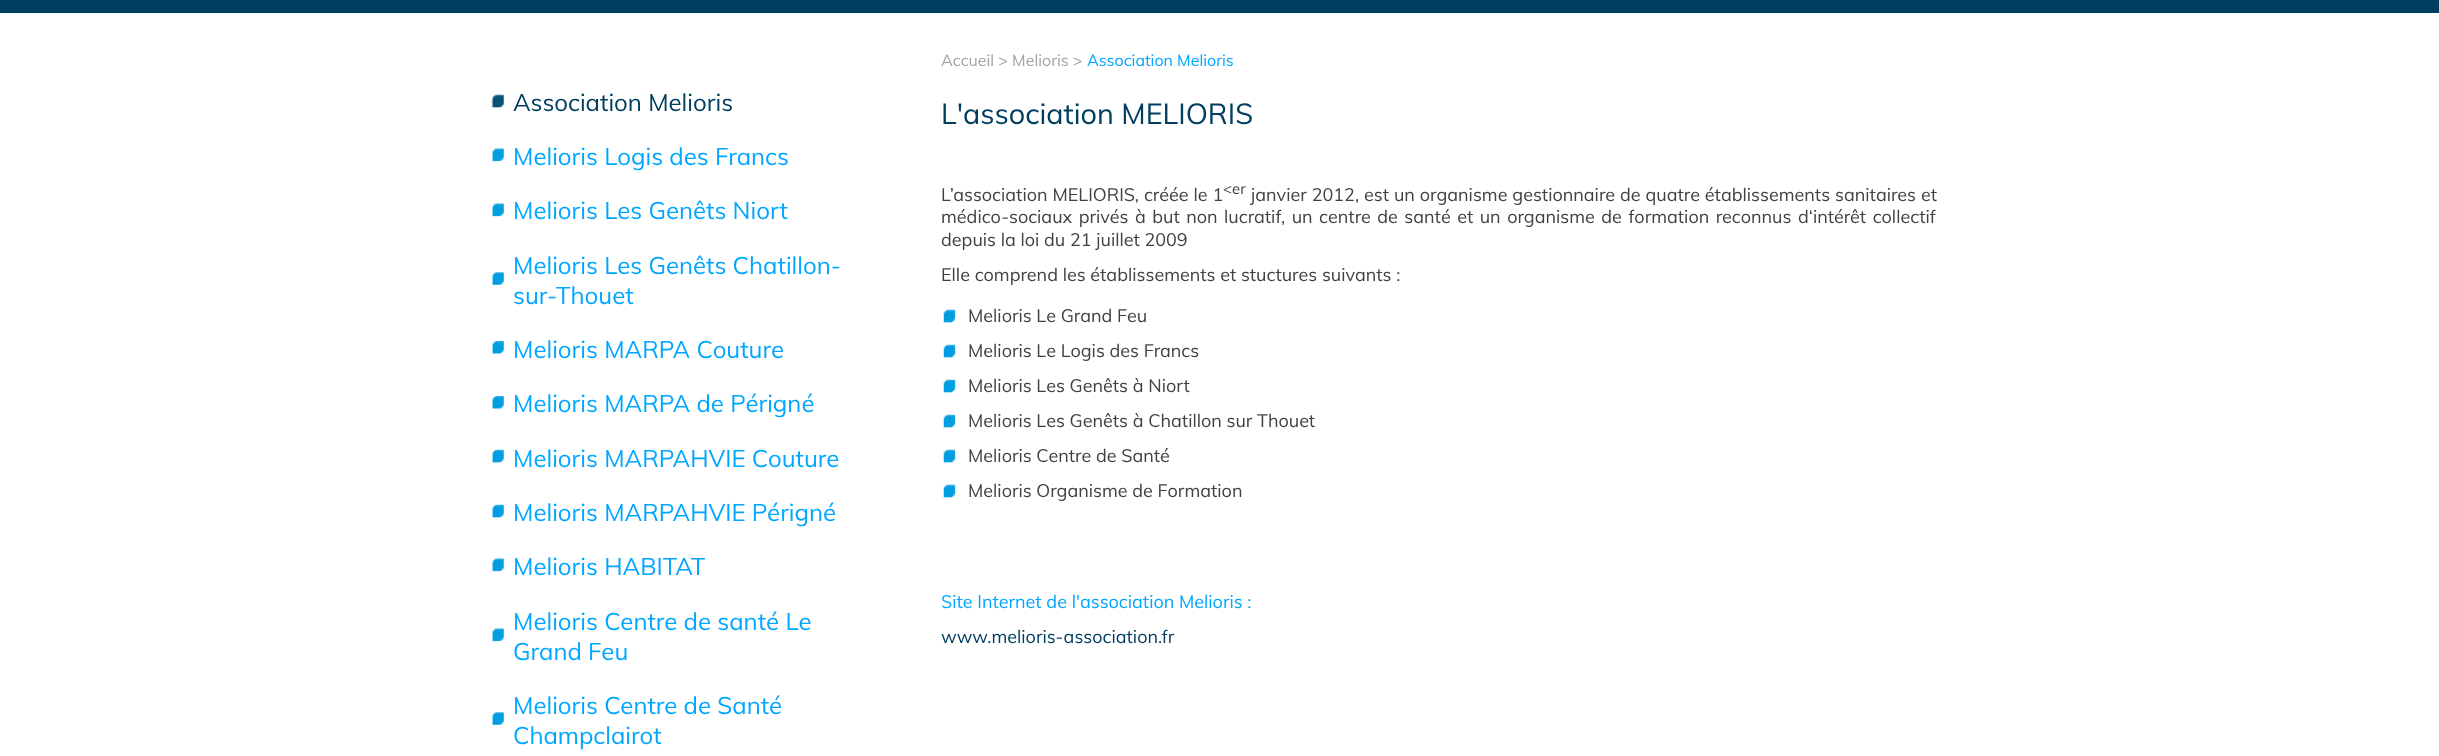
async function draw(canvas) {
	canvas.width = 2439;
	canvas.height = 756;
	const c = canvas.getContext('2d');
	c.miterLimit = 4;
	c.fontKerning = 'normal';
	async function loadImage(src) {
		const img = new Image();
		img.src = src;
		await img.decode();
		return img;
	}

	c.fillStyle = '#fff';
	c.fillRect(0, 0, 2439, 756);
	c.fillStyle = '#003e60';
	c.fillRect(0, 0, 2439, 13);
	c.drawImage(await loadImage('img1.png'), 491, 94, 14, 14);
	c.font = '24px Muli';
	c.fillText('Association Melioris', 513, 111);
	c.drawImage(await loadImage('img2.png'), 492, 148, 13, 14);
	c.fillStyle = '#00a6ff';
	c.fillText('Melioris Logis des Francs', 513, 165);
	c.drawImage(await loadImage('img2.png'), 492, 203, 13, 14);
	c.fillText('Melioris Les Genêts Niort', 513, 219);
	c.drawImage(await loadImage('img3.png'), 492, 272, 13, 13);
	c.fillText('Melioris Les Genêts Chatillon-', 513, 274);
	c.fillText('sur-Thouet', 513, 304);
	c.drawImage(await loadImage('img4.png'), 492, 341, 13, 13);
	c.fillText('Melioris MARPA Couture', 513, 358);
	c.drawImage(await loadImage('img4.png'), 492, 396, 13, 13);
	c.fillText('Melioris MARPA de Périgné', 513, 412);
	c.drawImage(await loadImage('img5.png'), 492, 449, 13, 14);
	c.fillText('Melioris MARPAHVIE Couture', 513, 467);
	c.drawImage(await loadImage('img5.png'), 492, 504, 13, 14);
	c.fillText('Melioris MARPAHVIE Périgné', 513, 521);
	c.drawImage(await loadImage('img2.png'), 492, 558, 13, 14);
	c.fillText('Melioris HABITAT', 513, 575);
	c.drawImage(await loadImage('img2.png'), 492, 628, 13, 14);
	c.fillText('Melioris Centre de santé Le', 513, 630);
	c.fillText('Grand Feu', 513, 660);
	c.drawImage(await loadImage('img3.png'), 492, 712, 13, 13);
	c.fillText('Melioris Centre de Santé', 513, 714);
	c.fillText('Champclairot', 513, 744);
	c.font = '16px Muli';
	c.fillStyle = '#a3a3a3';
	c.fillText('Accueil > Melioris >', 941, 66);
	c.fillStyle = '#00a6ff';
	c.fillText('Association Melioris', 1087, 66);
	c.font = '28.75px Muli';
	c.fillStyle = '#003e60';
	c.fillText('L\'association MELIORIS', 941, 124);
	c.wordSpacing = '0.25px';
	c.font = '18px Muli';
	c.fillStyle = '#414141';
	c.fillText('L’association MELIORIS, créée le 1', 941, 201);
	c.wordSpacing = '0px';
	c.font = '15px Muli';
	c.fillText('<er', 1223, 194);
	c.wordSpacing = '0.25px';
	c.font = '18px Muli';
	c.fillText('janvier 2012, est un organisme gestionnaire de quatre établissements sanitaires et', 1251, 201);
	c.wordSpacing = '1.8px';
	c.fillText('médico-sociaux privés à but non lucratif, un centre de santé et un organisme de formation reconnus d‘intérêt collectif', 941, 223);
	c.wordSpacing = '0px';
	c.fillText('depuis la loi du 21 juillet 2009', 941, 246);
	c.fillText('Elle comprend les établissements et stuctures suivants :', 941, 281);
	c.drawImage(await loadImage('img6.png'), 943, 309, 14, 14);
	c.fillText('Melioris Le Grand Feu', 968, 322);
	c.drawImage(await loadImage('img6.png'), 943, 344, 14, 14);
	c.fillText('Melioris Le Logis des Francs', 968, 357);
	c.drawImage(await loadImage('img6.png'), 943, 379, 14, 14);
	c.fillText('Melioris Les Genêts à Niort', 968, 392);
	c.drawImage(await loadImage('img6.png'), 943, 414, 14, 14);
	c.fillText('Melioris Les Genêts à Chatillon sur Thouet', 968, 427);
	c.drawImage(await loadImage('img6.png'), 943, 449, 14, 14);
	c.fillText('Melioris Centre de Santé', 968, 462);
	c.drawImage(await loadImage('img6.png'), 943, 484, 14, 14);
	c.fillText('Melioris Organisme de Formation', 968, 497);
	c.fillStyle = '#00a6ff';
	c.fillText('Site Internet de l\'association Melioris :', 941, 608);
	c.fillStyle = '#003e60';
	c.fillText('www.melioris-association.fr', 941, 643);
}

draw(document.querySelector('canvas'));
